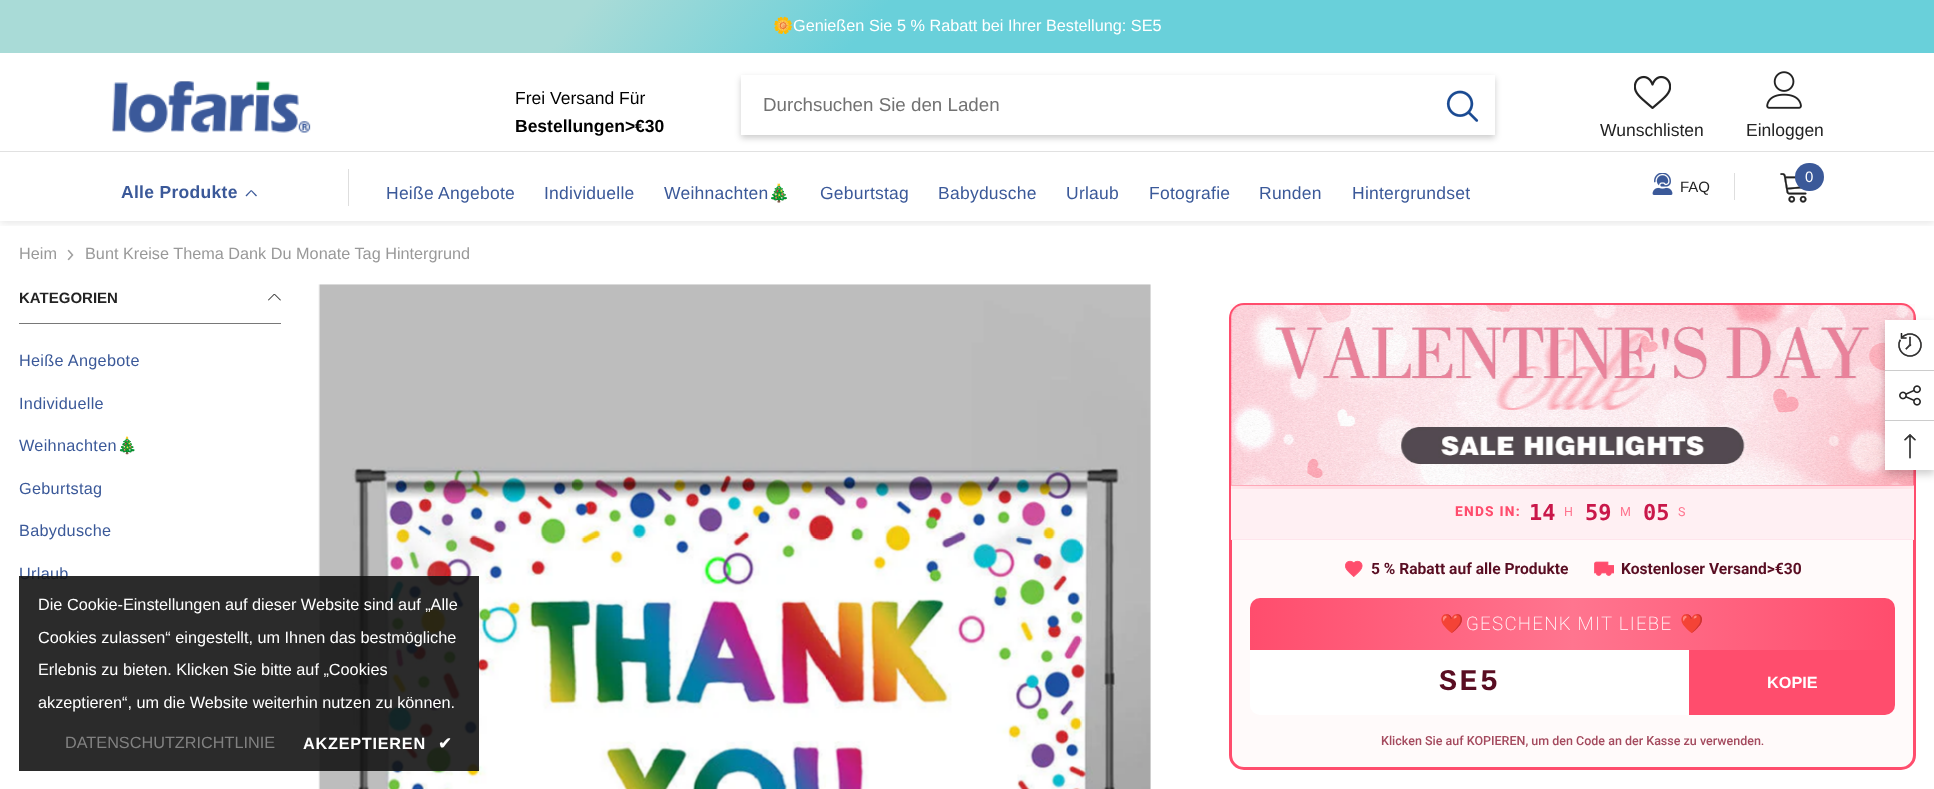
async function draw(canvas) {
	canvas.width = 1934;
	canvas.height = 789;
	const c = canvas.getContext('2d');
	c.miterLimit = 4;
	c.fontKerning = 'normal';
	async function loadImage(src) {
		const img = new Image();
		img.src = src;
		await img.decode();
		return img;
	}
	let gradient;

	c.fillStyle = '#fff';
	c.fillRect(0, 0, 1934, 789);
	gradient = c.createLinearGradient(403, -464, 1532, 517);
	gradient.addColorStop(0.3, '#a9dbd7');
	gradient.addColorStop(0.45, '#69d0da');
	c.fillStyle = gradient;
	c.fillRect(0, 0, 1934, 53);
	c.font = '16.25px Noto Color Emoji';
	c.fillStyle = '#fff';
	c.fillText('🌼', 773, 31);
	c.font = '16.25px Liberation Sans';
	c.fillText('Genießen Sie 5 % Rabatt bei Ihrer Bestellung: SE5', 793, 31);
	c.save();
	c.beginPath();
	c.rect(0, 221, 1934, 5);
	c.clip();
	c.fillStyle = '#0000001a';
	c.filter = 'blur(4px)';
	c.beginPath();
	c.rect(0, 154, 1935, 69);
	c.fill();
	c.filter = 'none';
	c.restore();
	c.fillStyle = '#e1e1e1';
	c.fillRect(0, 151, 1934, 1);
	c.fillStyle = '#fff';
	c.fillRect(0, 149, 1934, 2);
	c.drawImage(await loadImage('img1.png'), 112, 81, 199, 52);
	c.font = '17.5px Liberation Sans';
	c.fillStyle = '#000';
	c.fillText('Frei Versand Für', 515, 104);
	c.font = 'bold 17.5px Liberation Sans';
	c.fillText('Bestellungen>€30', 515, 132);
	c.fillStyle = '#00000033';
	c.filter = 'blur(3px)';
	c.beginPath();
	c.rect(741, 78, 754, 60);
	c.fill();
	c.filter = 'none';
	c.fillStyle = '#fff';
	c.fillRect(741, 75, 754, 60);
	c.font = '18.75px Liberation Sans';
	c.fillStyle = '#727272';
	c.fillText('Durchsuchen Sie den Laden', 763, 111);
	c.drawImage(await loadImage('img2.png'), 1446, 90, 33, 32);
	c.drawImage(await loadImage('img3.png'), 1634, 75, 37, 34);
	c.font = '17.5px Liberation Sans';
	c.fillStyle = '#232323';
	c.fillText('Wunschlisten', 1600, 136);
	c.drawImage(await loadImage('img4.png'), 1766, 71, 36, 38);
	c.fillText('Einloggen', 1746, 136);
	c.letterSpacing = '0.3px';
	c.font = 'bold 17.5px Liberation Sans';
	c.fillStyle = '#3b5999';
	c.fillText('Alle Produkte', 121, 198);
	c.beginPath();
	c.moveTo(245.5, 195.5);
	c.lineTo(251, 190);
	c.lineTo(251.5, 191);
	c.lineTo(246.5, 196.5);
	c.closePath();
	c.fill();
	c.beginPath();
	c.moveTo(256, 196.5);
	c.lineTo(251, 191);
	c.lineTo(251.5, 190);
	c.lineTo(257, 195.5);
	c.closePath();
	c.fill();
	c.fillStyle = '#dedede';
	c.fillRect(348, 169, 1, 37);
	c.letterSpacing = '0.25px';
	c.font = '17.5px Liberation Sans';
	c.fillStyle = '#3b5999';
	for (const [text, x, y] of [
		['Heiße Angebote', 386, 199],
		['Individuelle', 544, 199],
		['Weihnachten', 664, 199],
	]) {
		c.fillText(text, x, y);
	}
	c.font = '17.5px Noto Color Emoji';
	c.fillText('🎄', 768, 199);
	c.font = '17.5px Liberation Sans';
	for (const [text, x, y] of [
		['Geburtstag', 820, 199],
		['Babydusche', 938, 199],
		['Urlaub', 1066, 199],
		['Fotografie', 1149, 199],
		['Runden', 1259, 199],
		['Hintergrundset', 1352, 199],
	]) {
		c.fillText(text, x, y);
	}
	c.drawImage(await loadImage('img5.png'), 1780, 173, 27, 30);
	c.beginPath();
	c.roundRect(1795, 163, 29, 28, 14);
	c.fill();
	c.letterSpacing = '0px';
	c.font = '15px Liberation Sans';
	c.fillStyle = '#fff';
	c.fillText('0', 1805, 182);
	c.drawImage(await loadImage('img6.png'), 1652, 173, 21, 22);
	c.fillStyle = '#232323';
	c.fillText('FAQ', 1680, 192);
	c.fillStyle = '#dedede';
	c.fillRect(1734, 173, 1, 27);
	c.font = '16.25px Liberation Sans';
	c.fillStyle = '#999';
	c.fillText('Heim', 19, 259);
	c.drawImage(await loadImage('img7.png'), 67, 249, 7, 12);
	c.fillText('Bunt Kreise Thema Dank Du Monate Tag Hintergrund', 85, 259);
	c.fillStyle = '#787878';
	c.fillRect(19, 323, 262, 1);
	c.font = 'bold 15px Liberation Sans';
	c.fillStyle = '#232323';
	c.fillText('KATEGORIEN', 19, 303);
	c.drawImage(await loadImage('img8.png'), 268, 294, 13, 7);
	c.letterSpacing = '0.3px';
	c.font = '16.25px Liberation Sans';
	c.fillStyle = '#3b5999';
	for (const [text, x, y] of [
		['Heiße Angebote', 19, 366],
		['Individuelle', 19, 409],
		['Weihnachten', 19, 451],
	]) {
		c.fillText(text, x, y);
	}
	c.font = '16.25px Noto Color Emoji';
	c.fillText('🎄', 117, 451);
	c.font = '16.25px Liberation Sans';
	for (const [text, x, y] of [
		['Geburtstag', 19, 494],
		['Babydusche', 19, 536],
		['Urlaub', 19, 579],
	]) {
		c.fillText(text, x, y);
	}
	c.drawImage(await loadImage('img9.png'), 318, 284, 833, 505);
	c.fillStyle = '#fffafa';
	c.beginPath();
	c.roundRect(1230.5, 304.5, 684, 464, 13.5);
	c.fill();
	c.strokeStyle = '#ff4d6d';
	c.lineWidth = 3;
	c.stroke();
	c.fillStyle = '#ffb3c1';
	c.fillRect(1231, 485, 683, 1);
	c.fillStyle = '#fff0f3';
	c.fillRect(1231, 486, 683, 53);
	c.drawImage(await loadImage('img10.png'), 1230, 304, 685, 185);
	c.fillStyle = '#ffe5ec';
	c.fillRect(1231, 539, 683, 1);
	c.letterSpacing = '1.25px';
	c.font = '800 13.75px Roboto';
	c.fillStyle = '#ff4d6d';
	c.fillText('ENDS IN:', 1455, 516);
	c.letterSpacing = '0px';
	c.font = 'bold 22px DejaVu Sans Mono';
	c.fillStyle = '#c9184a';
	c.fillText('14', 1529, 520);
	c.font = '12.5px Roboto';
	c.fillStyle = '#ff758f';
	c.fillText('H', 1564, 516);
	c.font = 'bold 22px DejaVu Sans Mono';
	c.fillStyle = '#c9184a';
	c.fillText('59', 1585, 520);
	c.font = '12.5px Roboto';
	c.fillStyle = '#ff758f';
	c.fillText('M', 1620, 516);
	c.font = 'bold 22px DejaVu Sans Mono';
	c.fillStyle = '#c9184a';
	c.fillText('05', 1643, 520);
	c.font = '12.5px Roboto';
	c.fillStyle = '#ff758f';
	c.fillText('S', 1678, 516);
	c.drawImage(await loadImage('img11.png'), 1345, 560, 18, 17);
	c.font = 'bold 15.6px Roboto';
	c.fillStyle = '#590d22';
	c.fillText('5 % Rabatt auf alle Produkte', 1371, 574);
	c.drawImage(await loadImage('img12.png'), 1594, 561, 20, 15);
	c.fillText('Kostenloser Versand>€30', 1621, 574);
	c.fillStyle = '#fff';
	c.beginPath();
	c.roundRect(1250, 598, 645, 117, 10);
	c.fill();
	gradient = c.createLinearGradient(1250, 624, 1895, 624);
	gradient.addColorStop(0, '#ff4d6d');
	gradient.addColorStop(0.5, '#ff758f');
	gradient.addColorStop(1, '#ff4d6d');
	c.fillStyle = gradient;
	c.beginPath();
	c.roundRect(1250, 598, 645, 52, [10, 10, 0, 0]);
	c.fill();
	c.letterSpacing = '1.25px';
	c.font = 'bold 18.75px Noto Color Emoji';
	c.fillStyle = '#fff';
	c.fillText('❤️', 1440, 630);
	c.font = '200 18.75px Roboto';
	c.fillText('GESCHENK MIT LIEBE', 1466, 630);
	c.font = 'bold 18.75px Noto Color Emoji';
	c.fillText('❤️', 1680, 630);
	c.letterSpacing = '2.5px';
	c.font = 'bold 30px Liberation Mono';
	c.fillStyle = '#590d22';
	c.fillText('SE5', 1439, 690);
	c.fillStyle = '#ff4d6d';
	c.beginPath();
	c.roundRect(1689, 650, 206, 65, [0, 0, 10, 0]);
	c.fill();
	c.letterSpacing = '0px';
	c.font = 'bold 16.25px Liberation Sans';
	c.fillStyle = '#fff';
	c.fillText('KOPIE', 1767, 688);
	c.font = '500 12.5px Roboto';
	c.fillStyle = '#a44a5e';
	c.fillText('Klicken Sie auf KOPIEREN, um den Code an der Kasse zu verwenden.', 1381, 745);
	c.fillStyle = '#00000033';
	c.filter = 'blur(4.5px)';
	c.beginPath();
	c.rect(1885, 324, 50, 150);
	c.fill();
	c.filter = 'none';
	c.fillStyle = '#fff';
	c.fillRect(1885, 320, 49, 150);
	c.drawImage(await loadImage('img13.png'), 1898, 333, 24, 24);
	c.fillStyle = '#ccc';
	c.fillRect(1885, 370, 49, 1);
	c.drawImage(await loadImage('img14.png'), 1899, 385, 22, 21);
	c.fillRect(1885, 420, 49, 1);
	c.drawImage(await loadImage('img15.png'), 1904, 434, 12, 25);
	c.fillStyle = '#141414e6';
	c.fillRect(19, 576, 460, 195);
	c.font = '16.25px Liberation Sans';
	c.fillStyle = '#fff';
	for (const [text, x, y] of [
		['Die Cookie-Einstellungen auf dieser Website sind auf „Alle', 38, 610],
		['Cookies zulassen“ eingestellt, um Ihnen das bestmögliche', 38, 643],
		['Erlebnis zu bieten. Klicken Sie bitte auf „Cookies', 38, 675],
		['akzeptieren“, um die Website weiterhin nutzen zu können.', 38, 708],
	]) {
		c.fillText(text, x, y);
	}
	c.fillStyle = '#818181';
	c.fillText('DATENSCHUTZRICHTLINIE', 65, 748);
	c.letterSpacing = '0.75px';
	c.font = 'bold 16.25px Liberation Sans';
	c.fillStyle = '#fff';
	c.fillText('AKZEPTIEREN', 303, 749);
	c.font = 'bold 16.25px DejaVu Sans';
	c.fillText('✔', 438, 749);
}

draw(document.querySelector('canvas'));
